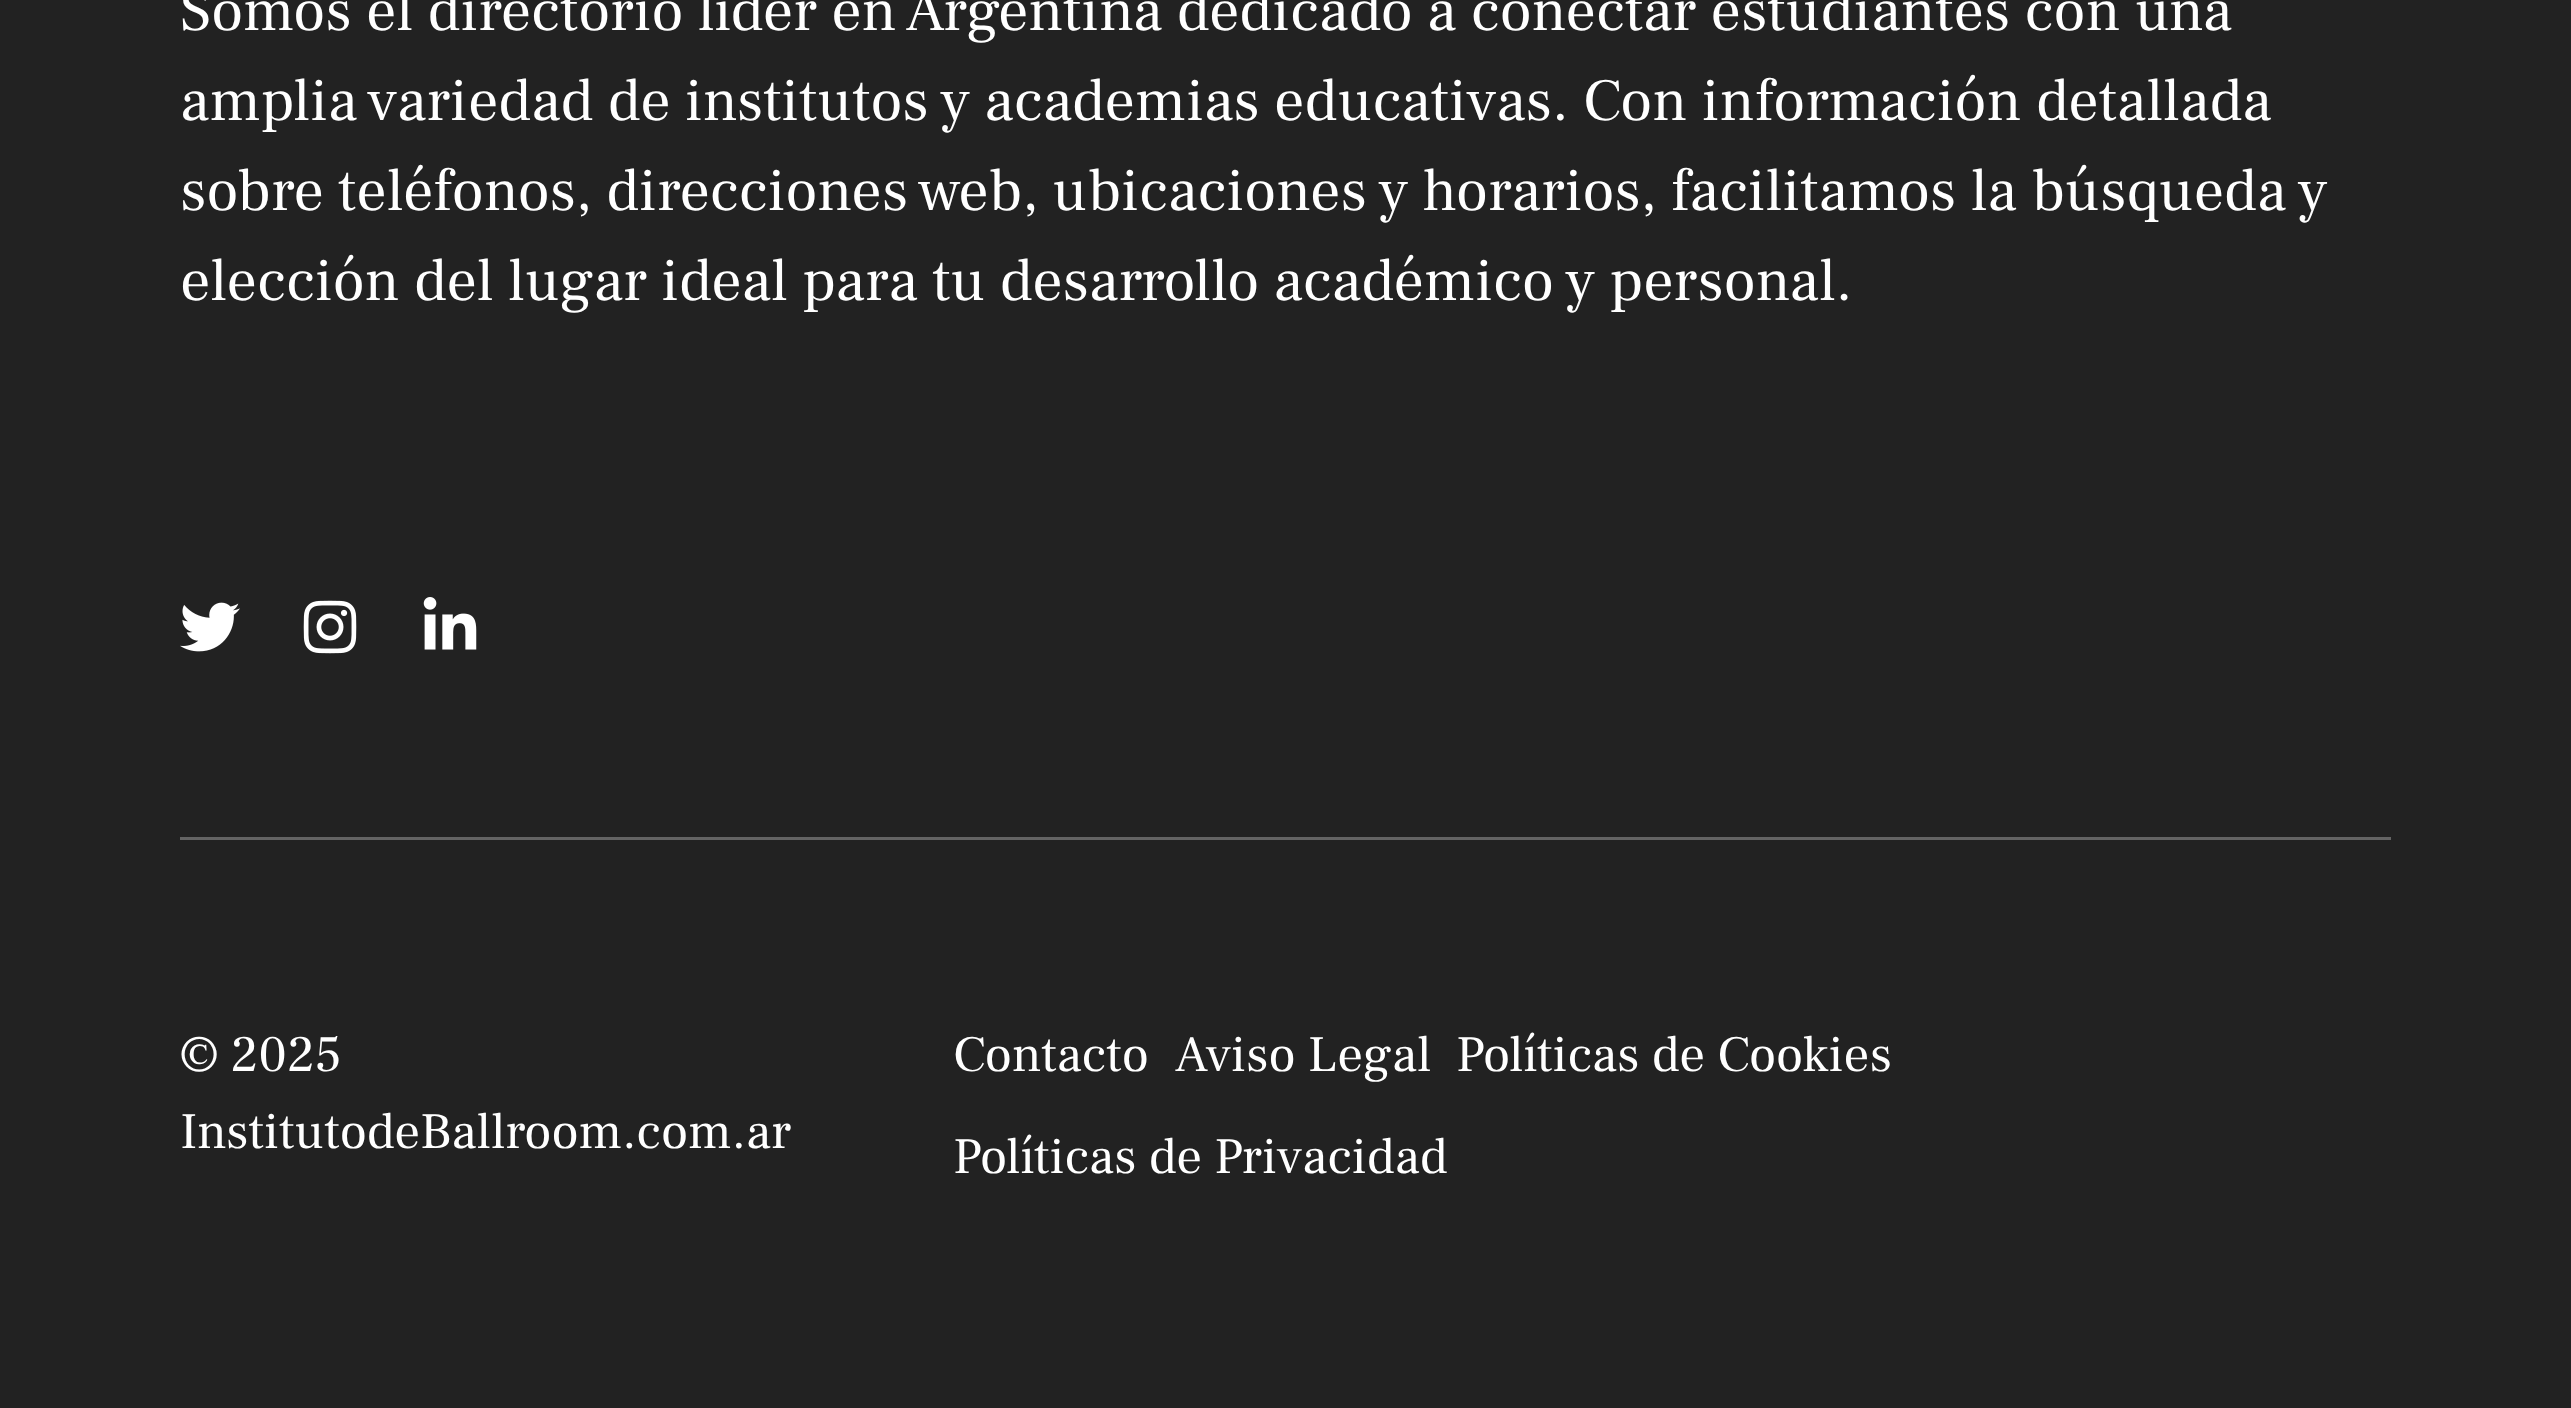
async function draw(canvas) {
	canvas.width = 2571;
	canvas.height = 1408;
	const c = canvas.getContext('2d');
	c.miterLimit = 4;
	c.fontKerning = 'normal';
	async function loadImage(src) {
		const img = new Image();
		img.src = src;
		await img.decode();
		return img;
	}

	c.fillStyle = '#222';
	c.fillRect(0, 0, 2571, 1408);
	c.font = '60px Frank Ruhl Libre';
	c.fillStyle = '#fff';
	for (const [text, x, y] of [
		['Somos el directorio líder en Argentina dedicado a conectar estudiantes con una', 180, 30],
		['amplia variedad de institutos y academias educativas. Con información detallada', 180, 120],
		['sobre teléfonos, direcciones web, ubicaciones y horarios, facilitamos la búsqueda y', 180, 210],
		['elección del lugar ideal para tu desarrollo académico y personal.', 180, 300],
	]) {
		c.fillText(text, x, y);
	}
	c.drawImage(await loadImage('img1.png'), 180, 602, 60, 50);
	c.drawImage(await loadImage('img2.png'), 303, 600, 54, 54);
	c.drawImage(await loadImage('img3.png'), 423, 597, 54, 53);
	c.fillStyle = '#646464';
	c.fillRect(180, 837, 2211, 3);
	c.font = '51px Frank Ruhl Libre';
	c.fillStyle = '#fff';
	for (const [text, x, y] of [
		['© 2025', 180, 1071],
		['InstitutodeBallroom.com.ar', 180, 1148],
		['Contacto', 953, 1071],
		['Aviso Legal', 1175, 1071],
		['Políticas de Cookies', 1456, 1071],
		['Políticas de Privacidad', 953, 1173],
	]) {
		c.fillText(text, x, y);
	}
}

draw(document.querySelector('canvas'));
